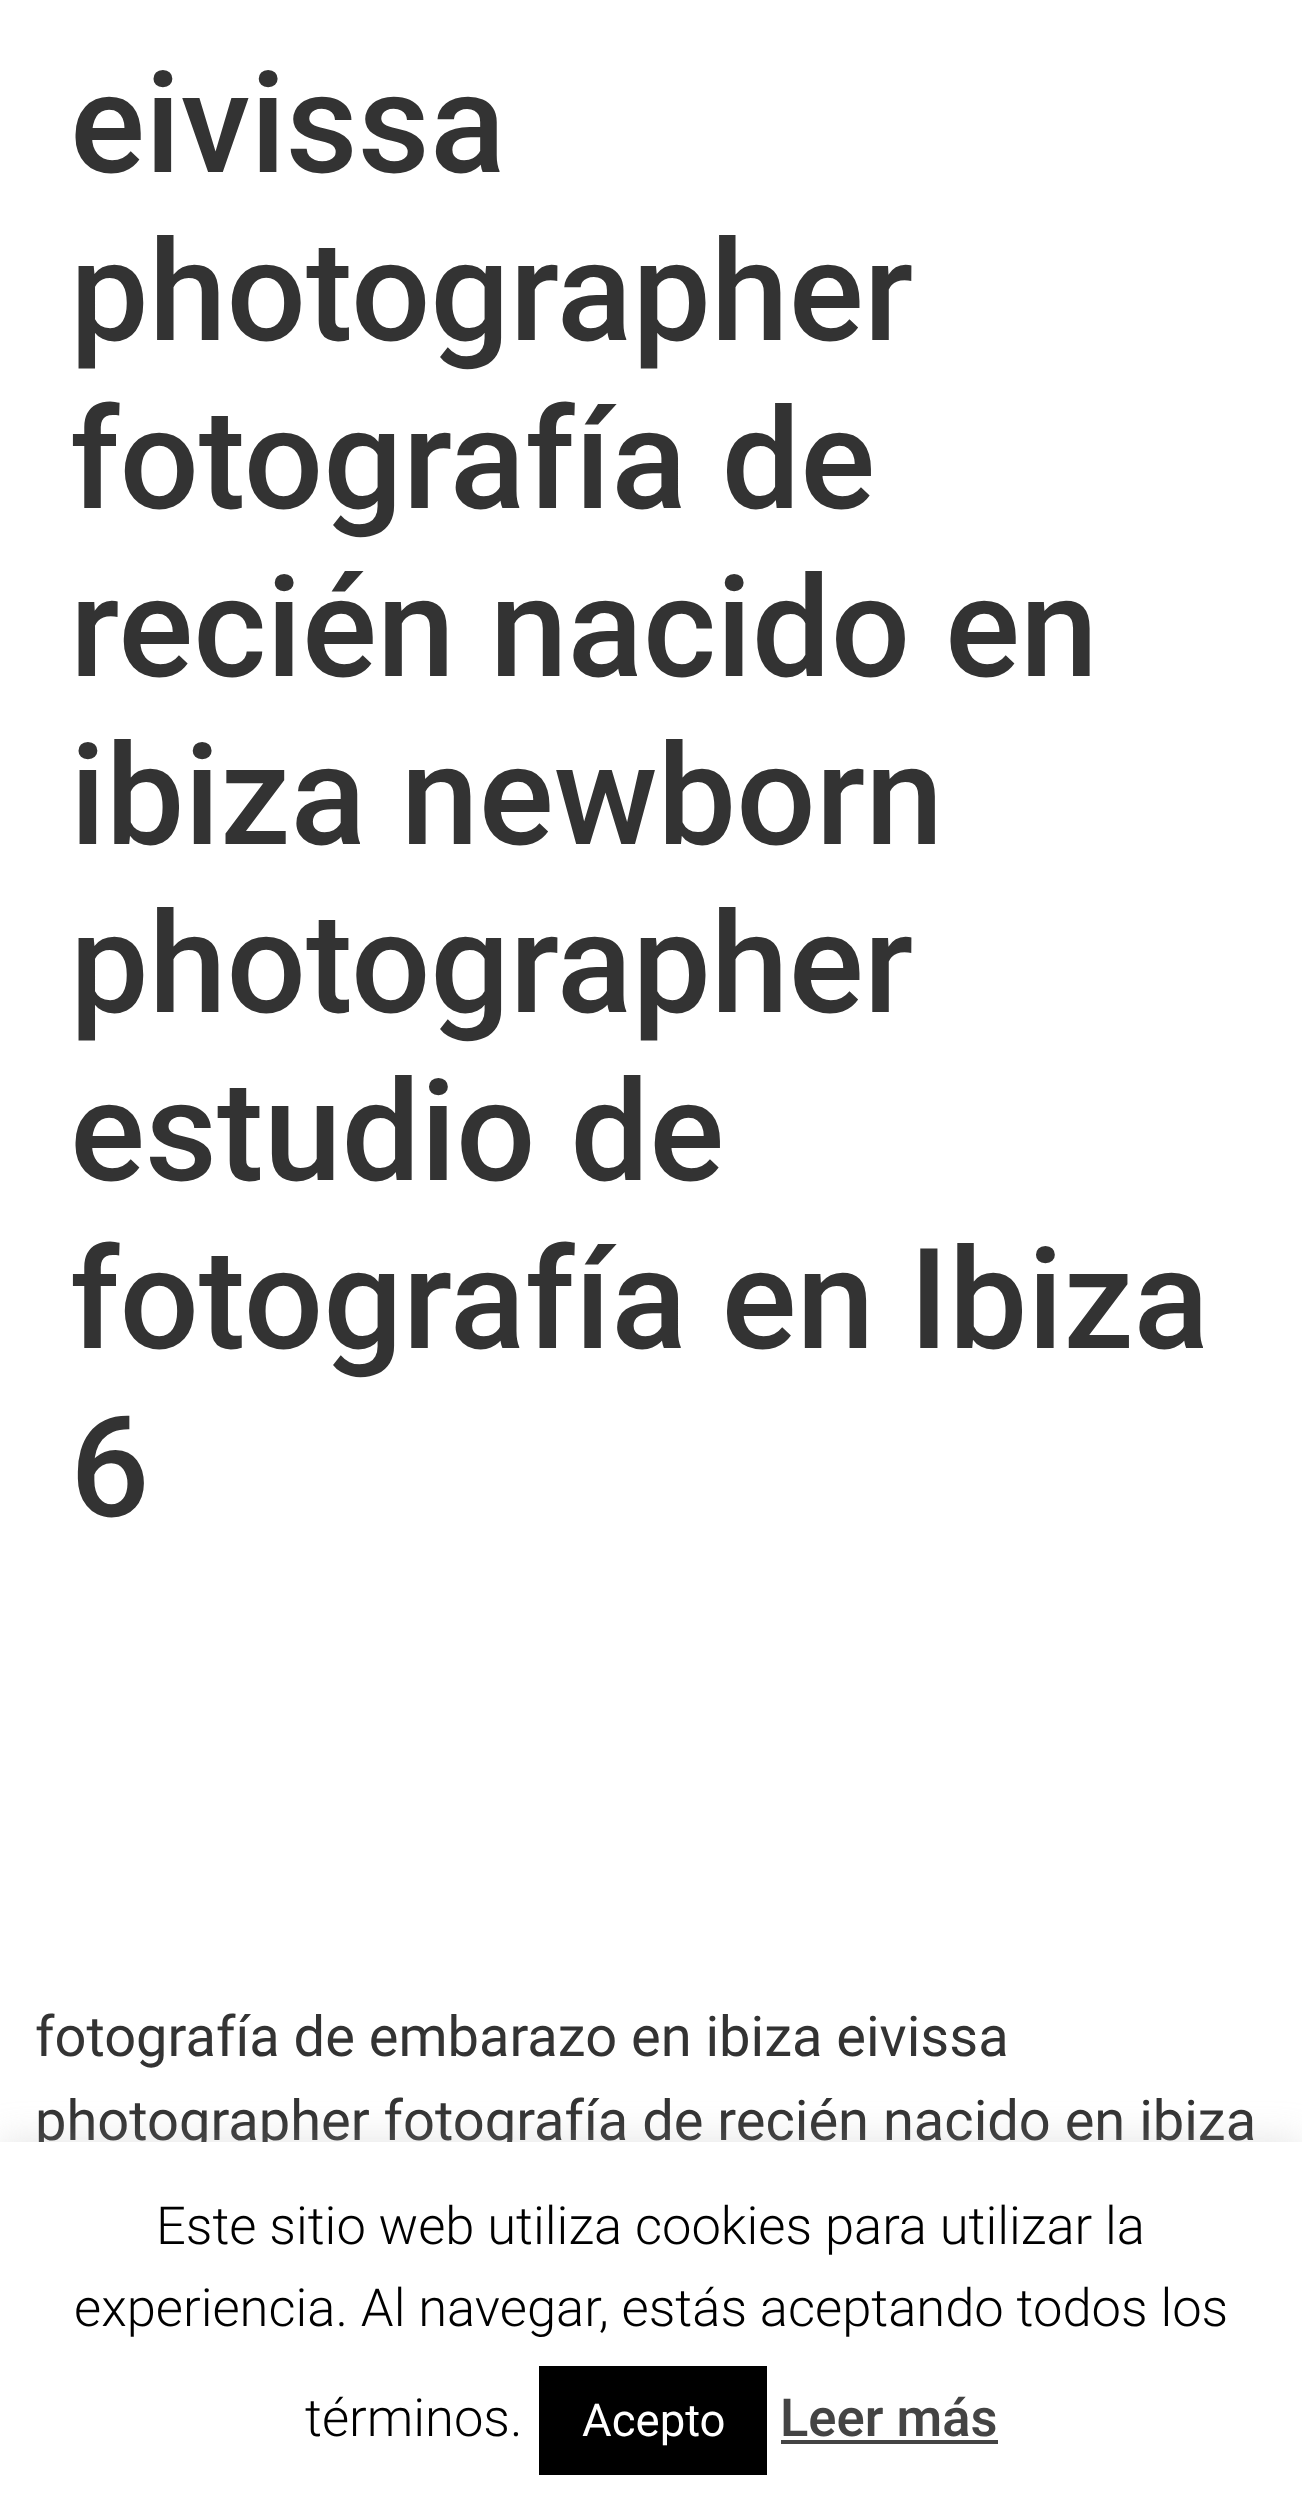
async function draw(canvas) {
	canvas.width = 1302;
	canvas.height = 2514;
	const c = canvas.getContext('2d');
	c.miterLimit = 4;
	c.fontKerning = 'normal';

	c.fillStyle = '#fff';
	c.fillRect(0, 0, 1302, 2514);
	c.font = '500 140px Roboto';
	c.fillStyle = '#333';
	for (const [text, x, y] of [
		['eivissa', 70, 172],
		['photographer', 70, 340],
		['fotografía de', 70, 508],
		['recién nacido en', 70, 676],
		['ibiza newborn', 70, 844],
		['photographer', 70, 1012],
		['estudio de', 70, 1180],
		['fotografía en Ibiza', 70, 1348],
		['6', 70, 1516],
	]) {
		c.fillText(text, x, y);
	}
	c.font = '56px Roboto';
	c.fillText('fotografía de embarazo en ibiza eivissa', 35, 2056);
	c.fillText('photographer fotografía de recién nacido en ibiza', 35, 2140);
	c.fillStyle = '#acabab4d';
	c.filter = 'blur(17.5px)';
	c.beginPath();
	c.rect(0, 2139, 1302, 374);
	c.fill();
	c.filter = 'none';
	c.fillStyle = '#fff';
	c.fillRect(0, 2142, 1302, 372);
	c.font = '300 52.5px Roboto';
	c.fillStyle = '#000';
	for (const [text, x, y] of [
		['Este sitio web utiliza cookies para utilizar la', 156, 2244],
		['experiencia. Al navegar, estás aceptando todos los', 74, 2326],
		['términos.', 305, 2436],
	]) {
		c.fillText(text, x, y);
	}
	c.fillRect(539, 2366, 228, 109);
	c.font = '45.5px Roboto';
	c.fillStyle = '#fff';
	c.fillText('Acepto', 582, 2436);
	c.font = '500 52.5px "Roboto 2"';
	c.fillStyle = '#444';
	c.fillText('Leer más', 780, 2436);
	c.fillRect(781, 2440, 217, 4);
}

draw(document.querySelector('canvas'));
